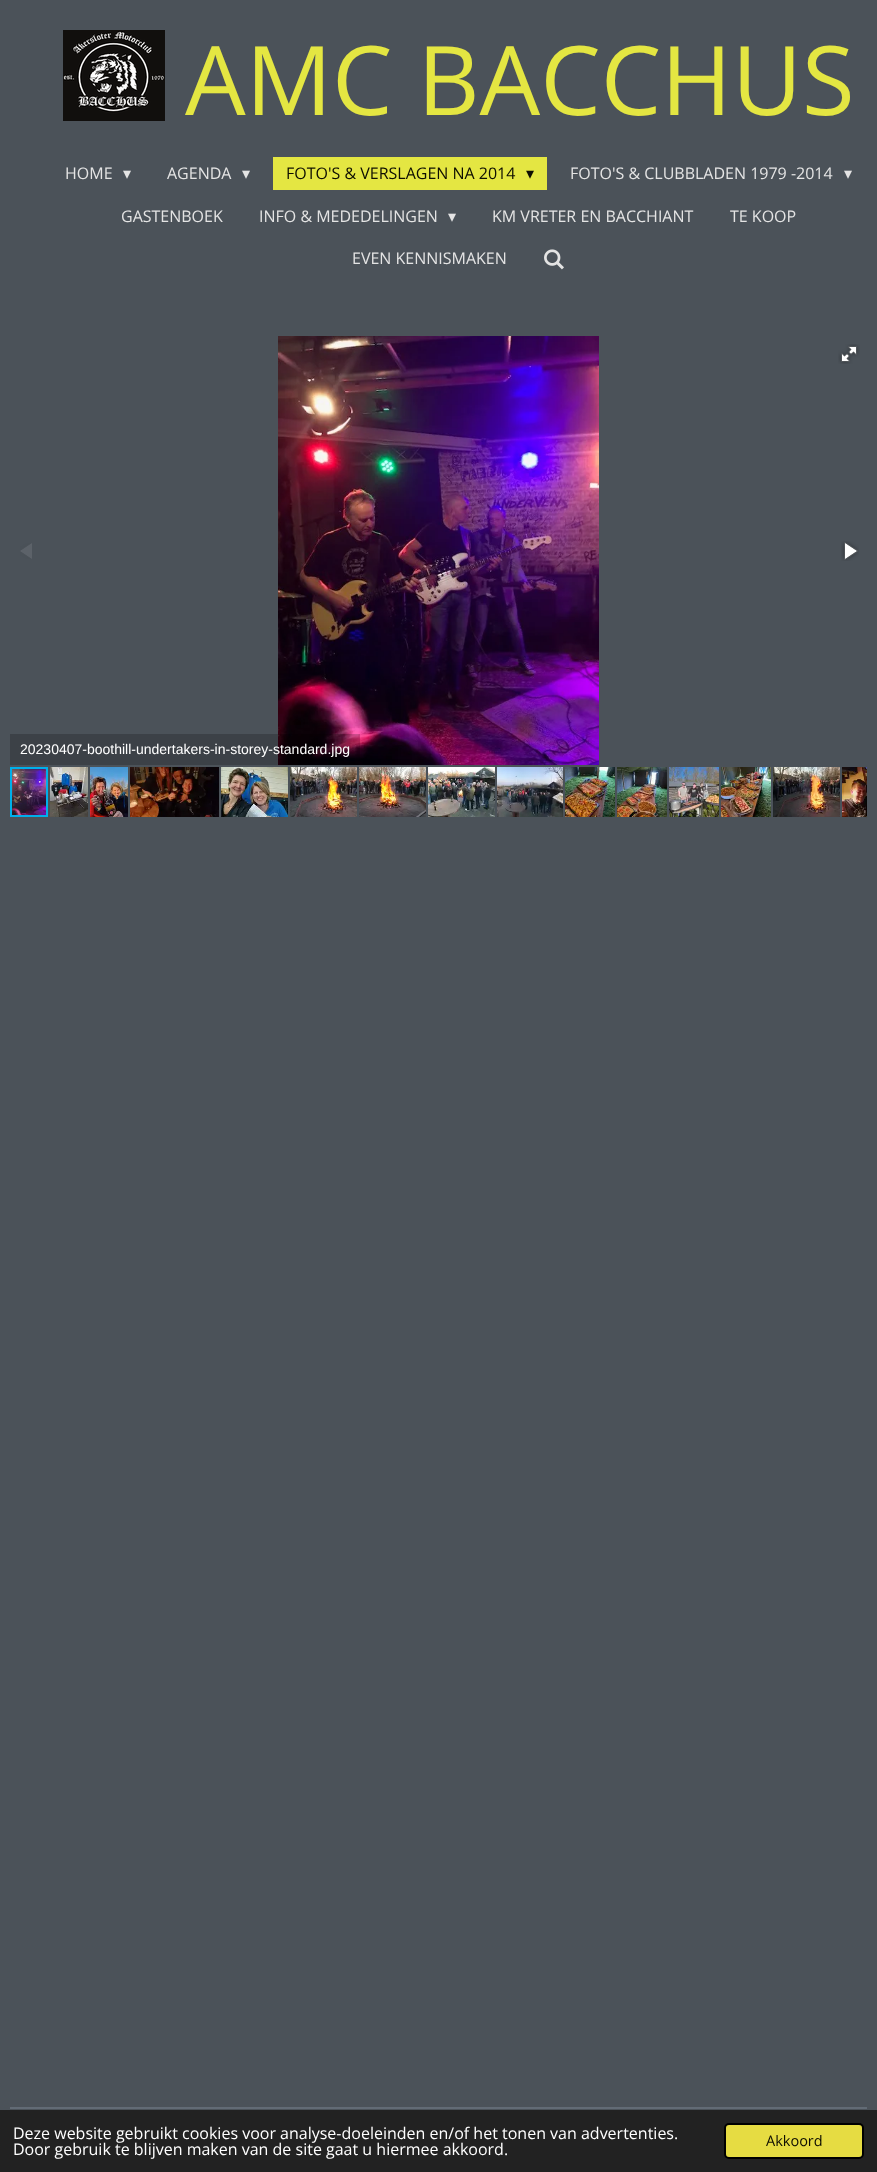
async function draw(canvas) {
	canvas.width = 877;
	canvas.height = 2172;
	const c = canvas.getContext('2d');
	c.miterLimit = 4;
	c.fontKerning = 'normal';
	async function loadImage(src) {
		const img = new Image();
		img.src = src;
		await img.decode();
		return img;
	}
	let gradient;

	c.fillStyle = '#4b5259';
	c.fillRect(0, 0, 877, 2172);
	c.drawImage(await loadImage('img1.png'), 63, 30, 102, 91);
	c.font = '96px Open Sans';
	c.fillStyle = '#e4e642';
	c.fillText('AMC BACCHUS', 185, 115);
	c.font = '16px Open Sans';
	c.fillStyle = '#e4e4e4';
	c.fillText('HOME', 65, 179);
	c.font = '16px DejaVu Sans';
	c.fillText('▾', 123, 179);
	c.font = '16px Open Sans';
	c.fillText('AGENDA', 167, 179);
	c.font = '16px DejaVu Sans';
	c.fillText('▾', 242, 179);
	c.fillStyle = '#e4e642';
	c.fillRect(273, 157, 274, 33);
	c.font = '16px Open Sans';
	c.fillStyle = '#0e0e02';
	c.fillText('FOTO\'S & VERSLAGEN NA 2014', 286, 179);
	c.font = '16px DejaVu Sans';
	c.fillText('▾', 526, 179);
	c.font = '16px Open Sans';
	c.fillStyle = '#e4e4e4';
	c.fillText('FOTO\'S & CLUBBLADEN 1979 -2014', 570, 179);
	c.font = '16px DejaVu Sans';
	c.fillText('▾', 844, 179);
	c.font = '16px Open Sans';
	c.fillText('GASTENBOEK', 121, 222);
	c.fillText('INFO & MEDEDELINGEN', 259, 222);
	c.font = '16px DejaVu Sans';
	c.fillText('▾', 448, 222);
	c.font = '16px Open Sans';
	for (const [text, x, y] of [
		['KM VRETER EN BACCHIANT', 492, 222],
		['TE KOOP', 730, 222],
		['EVEN KENNISMAKEN', 352, 264],
	]) {
		c.fillText(text, x, y);
	}
	c.drawImage(await loadImage('img2.png'), 544, 249, 20, 21);
	c.drawImage(await loadImage('img3.png'), 838, 344, 22, 20);
	c.drawImage(await loadImage('img4.png'), 20, 543, 12, 16);
	c.drawImage(await loadImage('img5.png'), 841, 541, 18, 20);
	c.drawImage(await loadImage('img6.png'), 278, 336, 321, 429);
	c.fillStyle = '#00000033';
	c.fillRect(10, 734, 350, 31);
	c.font = '14px Liberation Sans';
	c.fillStyle = '#fff';
	c.fillText('20230407-boothill-undertakers-in-storey-standard.jpg', 20, 754);
	c.drawImage(await loadImage('img20.png'), 842, 767, 25, 50);
	gradient = c.createRadialGradient(867, 146.67, 0, 867, 146.67, 5);
	gradient.addColorStop(0, '#00000066');
	gradient.addColorStop(1, '#00000000');
	c.fillStyle = gradient;
	c.beginPath();
	c.rect(862, 765, 5, 54);
	c.save();
	c.clip();
	c.scale(1, 27 / 5);
	c.fillRect(0, 0, 877, 403);
	c.restore();
	gradient = c.createLinearGradient(867, 765, 867, 819);
	gradient.addColorStop(0, '#00000000');
	gradient.addColorStop(0.25, '#00000033');
	gradient.addColorStop(0.75, '#0000004d');
	gradient.addColorStop(1, '#00000000');
	c.fillStyle = gradient;
	c.fillRect(866, 765, 1, 54);
	c.drawImage(await loadImage('img21.png'), 12, 769, 34, 46);
	c.strokeStyle = '#00afea';
	c.lineWidth = 2;
	c.strokeRect(11, 768, 36, 48);
	c.drawImage(await loadImage('img7.png'), 50, 767, 38, 50);
	c.drawImage(await loadImage('img8.png'), 90, 767, 38, 50);
	c.drawImage(await loadImage('img9.png'), 130, 767, 89, 50);
	c.drawImage(await loadImage('img10.png'), 221, 767, 67, 50);
	c.drawImage(await loadImage('img11.png'), 290, 767, 67, 50);
	c.drawImage(await loadImage('img12.png'), 359, 767, 67, 50);
	c.drawImage(await loadImage('img13.png'), 428, 767, 67, 50);
	c.drawImage(await loadImage('img14.png'), 497, 767, 66, 50);
	c.drawImage(await loadImage('img15.png'), 565, 767, 50, 50);
	c.drawImage(await loadImage('img16.png'), 617, 767, 50, 50);
	c.drawImage(await loadImage('img17.png'), 669, 767, 50, 50);
	c.drawImage(await loadImage('img18.png'), 721, 767, 50, 50);
	c.drawImage(await loadImage('img19.png'), 773, 767, 67, 50);
	c.fillStyle = '#626b75';
	c.fillRect(10, 2107, 857, 2);
	c.fillStyle = '#222';
	c.fillRect(0, 2110, 877, 62);
	c.font = '16px Open Sans';
	c.fillStyle = '#fff';
	c.fillText('Deze website gebruikt cookies voor analyse-doeleinden en/of het tonen van advertenties.', 13, 2139);
	c.fillText('Door gebruik te blijven maken van de site gaat u hiermee akkoord.', 13, 2155);
	c.fillStyle = '#e6dc42';
	c.beginPath();
	c.roundRect(725, 2124, 138, 34, 4);
	c.fill();
	c.strokeStyle = '#000';
	c.stroke();
	c.font = '14.5px Open Sans';
	c.fillStyle = '#0e0e02';
	c.fillText('Akkoord', 766, 2146);
}

draw(document.querySelector('canvas'));
